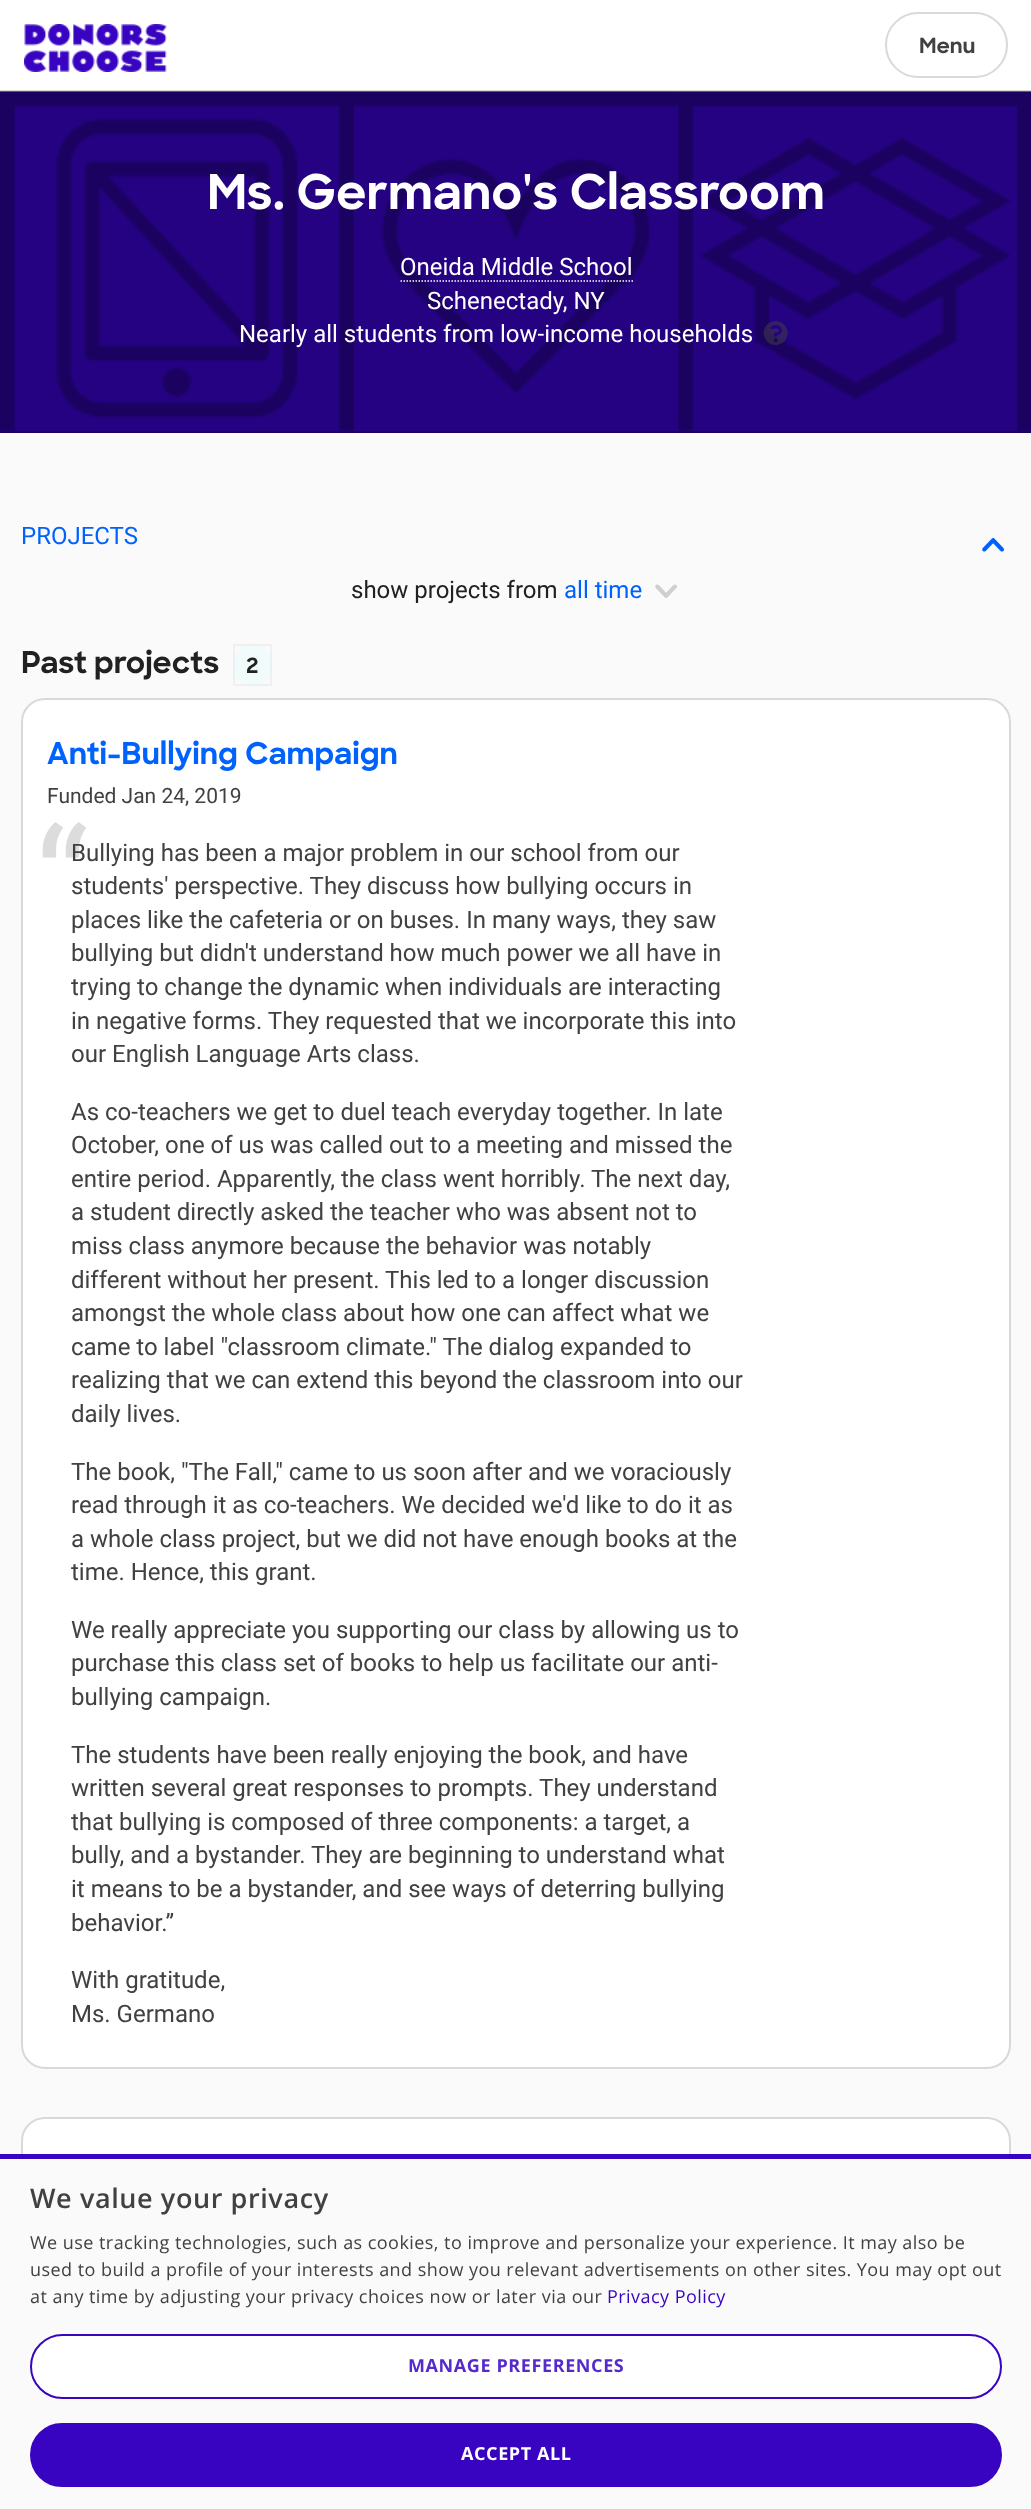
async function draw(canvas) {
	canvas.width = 1031;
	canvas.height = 2509;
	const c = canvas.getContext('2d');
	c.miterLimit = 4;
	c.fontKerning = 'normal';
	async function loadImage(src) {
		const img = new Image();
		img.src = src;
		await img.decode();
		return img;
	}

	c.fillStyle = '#fff';
	c.fillRect(0, 0, 1031, 2509);
	c.fillStyle = '#d9d9d9';
	c.fillRect(0, 90, 1031, 2);
	c.drawImage(await loadImage('img1.png'), 24, 24, 143, 48);
	c.beginPath();
	c.roundRect(886, 13, 121, 64, 32);
	c.strokeStyle = '#d9d9d9';
	c.lineWidth = 2;
	c.stroke();
	c.font = 'bold 21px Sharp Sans';
	c.fillStyle = '#414142';
	c.fillText('Menu', 919, 53);
	for (const [x, y, w, h, color] of [
		[0, 433, 1031, 1721, '#fafafa'],
		[0, 430, 1031, 1, '#250382'],
		[0, 431, 1031, 2, '#1b0260'],
	]) {
		c.fillStyle = color;
		c.fillRect(x, y, w, h);
	}
	c.drawImage(await loadImage('img2.png'), 0, 91, 1031, 340);
	c.drawImage(await loadImage('img3.png'), 0, 91, 1031, 340);
	c.font = 'bold 48px Sharp Sans';
	c.fillStyle = '#fff';
	c.fillText('Ms. Germano\'s Classroom', 207, 209);
	c.font = '24px Roboto';
	c.fillText('Oneida Middle School', 400, 275);
	c.beginPath();
	c.moveTo(400.5, 281);
	c.lineTo(633, 281);
	c.strokeStyle = '#fff';
	c.lineWidth = 1.5;
	c.setLineDash([1.5, 1.5]);
	c.stroke();
	c.fillText('Schenectady, NY', 427, 309);
	c.fillText('Nearly all students from low‑income households', 239, 342);
	c.drawImage(await loadImage('img4.png'), 763, 321, 25, 24);
	c.fillStyle = '#0062fd';
	c.fillText('PROJECTS', 21, 544);
	c.drawImage(await loadImage('img5.png'), 982, 538, 22, 14);
	c.fillStyle = '#212121';
	c.fillText('show projects from', 351, 598);
	c.fillStyle = '#0062fd';
	c.fillText('all time', 564, 598);
	c.drawImage(await loadImage('img6.png'), 655, 584, 22, 14);
	c.font = 'bold 30px Sharp Sans';
	c.fillStyle = '#212121';
	c.fillText('Past projects', 21, 673);
	c.fillStyle = '#f2fbfb';
	c.beginPath();
	c.roundRect(233, 644, 39, 42, 19.5);
	c.fill();
	c.strokeStyle = '#4141420d';
	c.lineWidth = 2;
	c.setLineDash([]);
	c.strokeRect(234, 645, 37, 40);
	c.font = 'bold 21px Sharp Sans';
	c.fillStyle = '#212121';
	c.fillText('2', 246, 673);
	c.fillStyle = '#fff';
	c.beginPath();
	c.roundRect(22, 699, 988, 1369, 23);
	c.fill();
	c.strokeStyle = '#d9d9d9';
	c.stroke();
	c.font = 'bold 30px Sharp Sans';
	c.fillStyle = '#0062fd';
	c.fillText('Anti-Bullying Campaign', 47, 764);
	c.font = '21px Roboto';
	c.fillStyle = '#414142';
	c.fillText('Funded Jan 24, 2019', 47, 803);
	c.font = '150px Roboto';
	c.fillStyle = '#dcdcdc';
	c.fillText('“', 35, 936);
	c.font = '24px Roboto';
	c.fillStyle = '#414142';
	for (const [text, x, y] of [
		['Bullying has been a major problem in our school from our', 71, 861],
		['students\' perspective. They discuss how bullying occurs in', 71, 894],
		['places like the cafeteria or on buses. In many ways, they saw', 71, 928],
		['bullying but didn\'t understand how much power we all have in', 71, 961],
		['trying to change the dynamic when individuals are interacting', 71, 995],
		['in negative forms. They requested that we incorporate this into', 71, 1029],
		['our English Language Arts class.', 71, 1062],
		['As co-teachers we get to duel teach everyday together. In late', 71, 1120],
		['October, one of us was called out to a meeting and missed the', 71, 1153],
		['entire period. Apparently, the class went horribly. The next day,', 71, 1187],
		['a student directly asked the teacher who was absent not to', 71, 1220],
		['miss class anymore because the behavior was notably', 71, 1254],
		['different without her present. This led to a longer discussion', 71, 1288],
		['amongst the whole class about how one can affect what we', 71, 1321],
		['came to label "classroom climate." The dialog expanded to', 71, 1355],
		['realizing that we can extend this beyond the classroom into our', 71, 1388],
		['daily lives.', 71, 1422],
		['The book, "The Fall," came to us soon after and we voraciously', 71, 1480],
		['read through it as co-teachers. We decided we\'d like to do it as', 71, 1513],
		['a whole class project, but we did not have enough books at the', 71, 1547],
		['time. Hence, this grant.', 71, 1580],
		['We really appreciate you supporting our class by allowing us to', 71, 1638],
		['purchase this class set of books to help us facilitate our anti-', 71, 1671],
		['bullying campaign.', 71, 1705],
		['The students have been really enjoying the book, and have', 71, 1763],
		['written several great responses to prompts. They understand', 71, 1796],
		['that bullying is composed of three components: a target, a', 71, 1830],
		['bully, and a bystander. They are beginning to understand what', 71, 1863],
		['it means to be a bystander, and see ways of deterring bullying', 71, 1897],
		['behavior.”', 71, 1931],
		['With gratitude,', 71, 1988],
		['Ms. Germano', 71, 2022],
	]) {
		c.fillText(text, x, y);
	}
	c.fillStyle = '#fff';
	c.beginPath();
	c.roundRect(22, 2118, 988, 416, 23);
	c.fill();
	c.stroke();
	c.fillStyle = '#fafafa';
	c.fillRect(0, 2159, 1031, 350);
	c.fillStyle = '#3804c1';
	c.fillRect(0, 2154, 1031, 5);
	c.letterSpacing = '0.6px';
	c.font = '600 27px Open Sans';
	c.fillStyle = '#414142';
	c.fillText('We value your privacy', 30, 2208);
	c.letterSpacing = '0.45px';
	c.font = '18px Open Sans';
	for (const [text, x, y] of [
		['We use tracking technologies, such as cookies, to improve and personalize your experience. It may also be', 30, 2249],
		['used to build a profile of your interests and show you relevant advertisements on other sites. You may opt out', 30, 2276],
		['at any time by adjusting your privacy choices now or later via our', 30, 2303],
	]) {
		c.fillText(text, x, y);
	}
	c.fillStyle = '#3804c1';
	c.fillText('Privacy Policy', 607, 2303);
	c.fillStyle = '#fff';
	c.beginPath();
	c.roundRect(31, 2335, 970, 63, 31.5);
	c.fill();
	c.strokeStyle = '#3804c1';
	c.stroke();
	c.letterSpacing = '0.6px';
	c.font = 'bold 18px Open Sans';
	c.fillStyle = '#562aca';
	c.fillText('MANAGE PREFERENCES', 408, 2372);
	c.fillStyle = '#3804c1';
	c.beginPath();
	c.roundRect(31, 2424, 970, 62, 31);
	c.fill();
	c.stroke();
	c.fillStyle = '#fff';
	c.fillText('ACCEPT ALL', 461, 2460);
}

draw(document.querySelector('canvas'));
